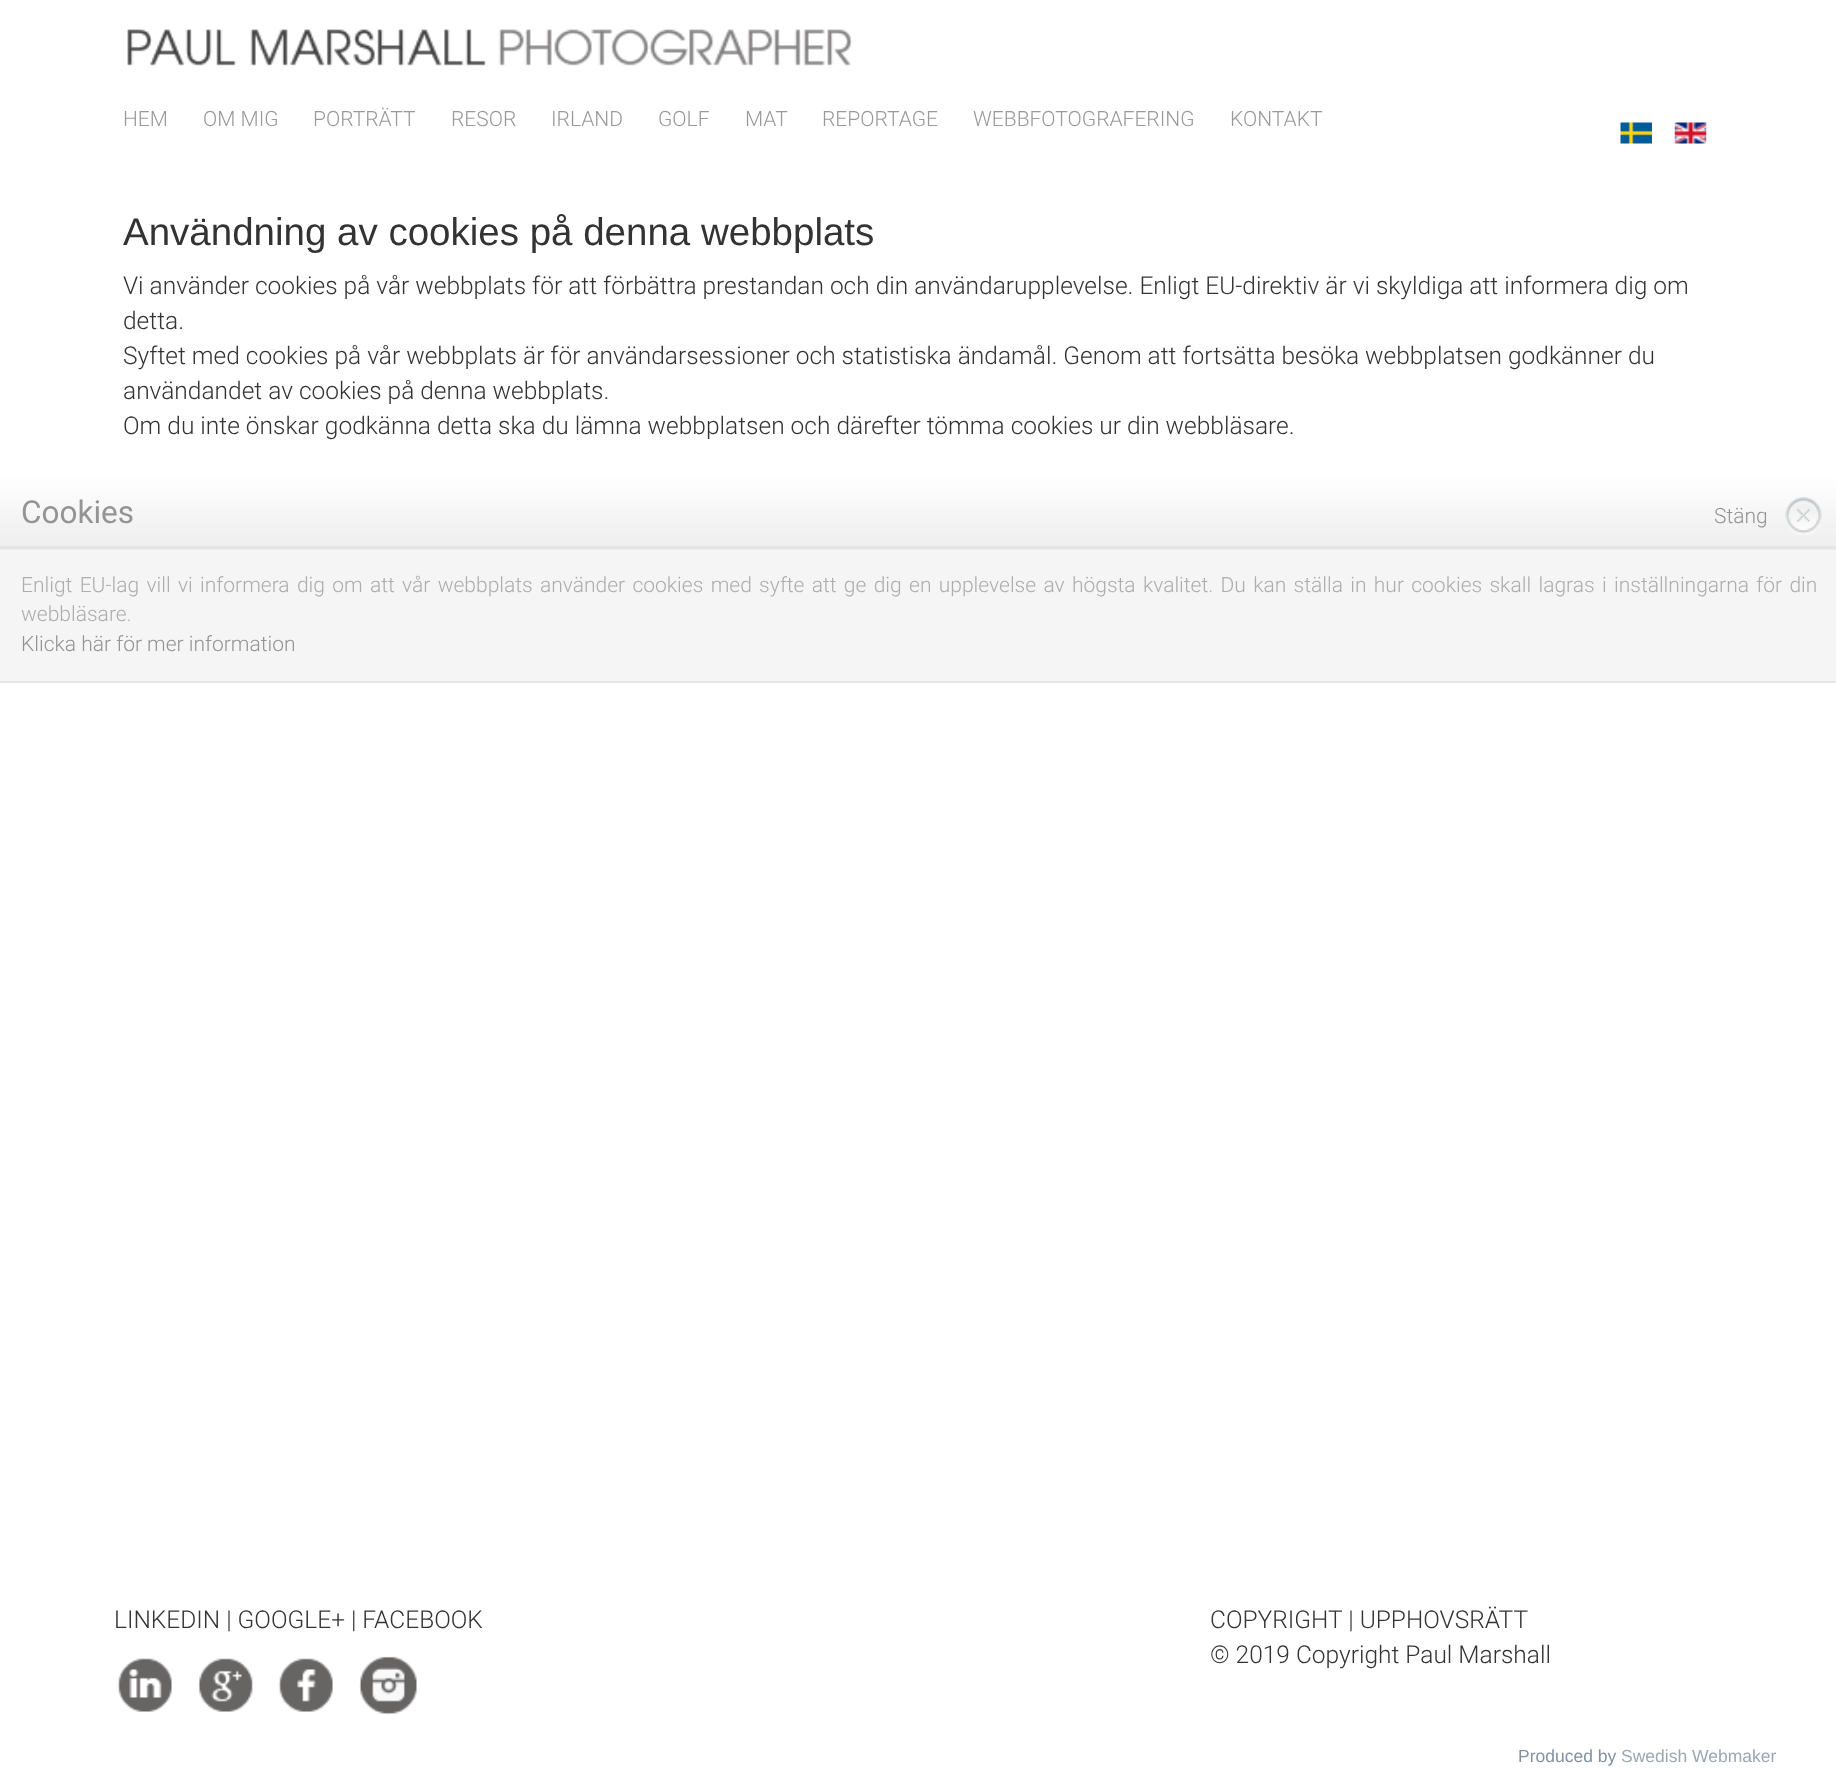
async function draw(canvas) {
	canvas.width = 1836;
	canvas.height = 1768;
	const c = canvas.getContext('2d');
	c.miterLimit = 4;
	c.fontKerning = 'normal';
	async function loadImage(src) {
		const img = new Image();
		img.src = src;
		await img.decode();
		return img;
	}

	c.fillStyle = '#fff';
	c.fillRect(0, 0, 1836, 1768);
	c.drawImage(await loadImage('img1.png'), 127, 29, 726, 37);
	c.font = '300 21px Roboto';
	c.fillStyle = '#999';
	for (const [text, x, y] of [
		['HEM', 123, 126],
		['OM MIG', 203, 126],
		['PORTRÄTT', 313, 126],
		['RESOR', 451, 126],
		['IRLAND', 551, 126],
		['GOLF', 658, 126],
		['MAT', 745, 126],
		['REPORTAGE', 822, 126],
		['WEBBFOTOGRAFERING', 973, 126],
		['KONTAKT', 1230, 126],
	]) {
		c.fillText(text, x, y);
	}
	c.drawImage(await loadImage('img2.png'), 1620, 122, 32, 22);
	c.drawImage(await loadImage('img3.png'), 1674, 122, 33, 22);
	c.font = '38.5px Liberation Sans';
	c.fillStyle = '#333';
	c.fillText('Användning av cookies på denna webbplats', 123, 245);
	c.font = '300 24.5px Roboto';
	for (const [text, x, y] of [
		['Vi använder cookies på vår webbplats för att förbättra prestandan och din användarupplevelse. Enligt EU-direktiv är vi skyldiga att informera dig om', 123, 294],
		['detta.', 123, 329],
		['Syftet med cookies på vår webbplats är för användarsessioner och statistiska ändamål. Genom att fortsätta besöka webbplatsen godkänner du', 123, 364],
		['användandet av cookies på denna webbplats.', 123, 399],
		['Om du inte önskar godkänna detta ska du lämna webbplatsen och därefter tömma cookies ur din webbläsare.', 123, 434],
	]) {
		c.fillText(text, x, y);
	}
	c.fillStyle = '#f5f5f5';
	c.fillRect(0, 549, 1836, 132);
	c.fillStyle = '#e5e5e5';
	c.fillRect(0, 681, 1836, 2);
	c.drawImage(await loadImage('img4.png'), 0, 476, 1836, 74);
	c.font = '31.5px Roboto';
	c.fillStyle = '#959393';
	c.fillText('Cookies', 21, 523);
	c.wordSpacing = '2.2px';
	c.font = '300 21px Roboto';
	c.fillStyle = '#adadad';
	c.fillText('Enligt EU-lag vill vi informera dig om att vår webbplats använder cookies med syfte att ge dig en upplevelse av högsta kvalitet. Du kan ställa in hur cookies skall lagras i inställningarna för din', 21, 592);
	c.wordSpacing = '0px';
	c.fillText('webbläsare.', 21, 621);
	c.fillStyle = '#959393';
	c.fillText('Klicka här för mer information', 21, 651);
	c.drawImage(await loadImage('img5.png'), 1785, 497, 37, 38);
	c.fillText('Stäng', 1714, 523);
	c.font = '300 24.5px Roboto';
	c.fillStyle = '#333';
	c.fillText('LINKEDIN | GOOGLE+ | FACEBOOK', 114, 1628);
	c.drawImage(await loadImage('img6.png'), 117, 1658, 55, 54);
	c.drawImage(await loadImage('img7.png'), 198, 1658, 55, 54);
	c.drawImage(await loadImage('img8.png'), 278, 1658, 55, 54);
	c.drawImage(await loadImage('img9.png'), 359, 1656, 58, 59);
	c.fillText('COPYRIGHT | UPPHOVSRÄTT', 1210, 1628);
	c.fillText('© 2019 Copyright Paul Marshall', 1210, 1663);
	c.font = '17.5px Liberation Sans';
	c.fillStyle = '#83919f';
	c.fillText('Produced by', 1518, 1762);
	c.fillStyle = '#9ca7b2';
	c.fillText('Swedish Webmaker', 1621, 1762);
}

draw(document.querySelector('canvas'));
